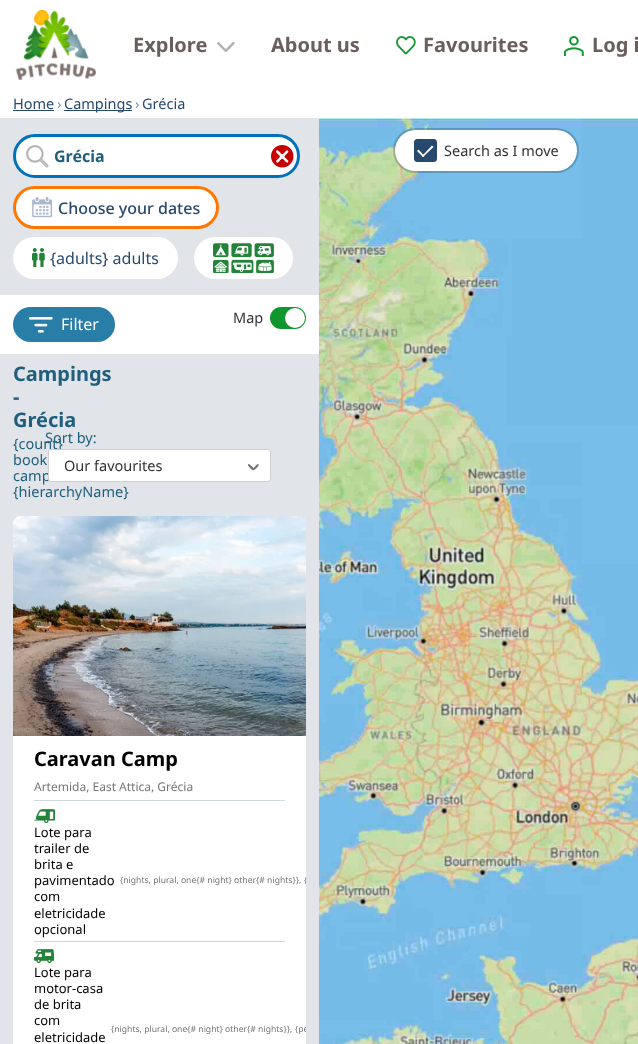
async function draw(canvas) {
	canvas.width = 638;
	canvas.height = 1044;
	const c = canvas.getContext('2d');
	c.miterLimit = 4;
	c.fontKerning = 'normal';
	async function loadImage(src) {
		const img = new Image();
		img.src = src;
		await img.decode();
		return img;
	}

	c.fillStyle = '#fff';
	c.fillRect(0, 0, 638, 1044);
	c.drawImage(await loadImage('img1.png'), 15, 10, 81, 70);
	c.font = 'bold 20px Noto Sans';
	c.fillStyle = '#6a5f5c';
	c.fillText('Explore', 133, 52);
	c.drawImage(await loadImage('img2.png'), 217, 42, 18, 10);
	c.fillText('About us', 271, 52);
	c.drawImage(await loadImage('img3.png'), 396, 36, 20, 19);
	c.fillText('Favourites', 423, 52);
	c.drawImage(await loadImage('img4.png'), 564, 36, 20, 20);
	c.fillText('Log i', 592, 52);
	c.font = '14.5px Noto Sans';
	c.fillStyle = '#27496d';
	c.fillText('Home', 13, 109);
	c.fillRect(13, 110, 41, 1);
	c.fillStyle = '#6496c8';
	c.fillText('›', 57, 109);
	c.fillStyle = '#27496d';
	c.fillRect(64, 110, 68, 1);
	c.fillText('Campings', 64, 109);
	c.fillStyle = '#6496c8';
	c.fillText('›', 135, 109);
	c.fillStyle = '#27496d';
	c.fillText('Grécia', 142, 109);
	c.fillStyle = '#e1e5ea';
	c.fillRect(0, 118, 319, 177);
	c.fillStyle = '#fff';
	c.beginPath();
	c.roundRect(14.5, 135.5, 284, 41, 20.5);
	c.fill();
	c.strokeStyle = '#0072bc';
	c.lineWidth = 3;
	c.stroke();
	c.drawImage(await loadImage('img5.png'), 26, 145, 23, 23);
	c.drawImage(await loadImage('img6.png'), 271, 145, 23, 23);
	c.font = 'bold 16px Noto Sans';
	c.fillStyle = '#1f5f7d';
	c.fillText('Grécia', 54, 162);
	c.fillStyle = '#fff';
	c.beginPath();
	c.roundRect(14.5, 187.5, 203, 40, 20);
	c.fill();
	c.strokeStyle = '#ff7600';
	c.stroke();
	c.drawImage(await loadImage('img7.png'), 32, 197, 20, 21);
	c.font = '500 16px Noto Sans';
	c.fillStyle = '#27496d';
	c.fillText('Choose your dates', 58, 214);
	c.fillStyle = '#fff';
	c.beginPath();
	c.roundRect(13, 237, 165, 42, 21);
	c.fill();
	c.drawImage(await loadImage('img8.png'), 32, 248, 13, 19);
	c.font = '16px Noto Sans';
	c.fillStyle = '#27496d';
	c.fillText('{adults} adults', 50, 264);
	c.fillStyle = '#fff';
	c.beginPath();
	c.roundRect(194, 237, 99, 42, 21);
	c.fill();
	c.drawImage(await loadImage('img9.png'), 213, 243, 61, 30);
	c.fillStyle = '#297ea7';
	c.beginPath();
	c.roundRect(13, 307, 102, 35, 17.5);
	c.fill();
	c.drawImage(await loadImage('img10.png'), 29, 317, 24, 16);
	c.fillStyle = '#fff';
	c.fillText('Filter', 61, 330);
	c.font = '14.5px Noto Sans';
	c.fillStyle = '#333';
	c.fillText('Map', 233, 323);
	c.fillStyle = '#0f972e';
	c.beginPath();
	c.roundRect(270, 307, 36, 22, 11);
	c.fill();
	c.fillStyle = '#fff';
	c.beginPath();
	c.arc(295, 318, 10, 0, 2 * Math.PI);
	c.fill();
	c.fillStyle = '#e1e5ea';
	c.fillRect(0, 354, 319, 146);
	c.font = 'bold 20px Noto Sans';
	c.fillStyle = '#1f5f7d';
	for (const [text, x, y] of [
		['Campings', 13, 381],
		['-', 13, 404],
		['Grécia', 13, 427],
	]) {
		c.fillText(text, x, y);
	}
	c.font = '14.5px Noto Sans';
	for (const [text, x, y] of [
		['{count}', 13, 449],
		['book', 13, 465],
		['camp', 13, 481],
		['{hierarchyName}', 13, 497],
		['Sort by:', 45, 443],
	]) {
		c.fillText(text, x, y);
	}
	c.fillStyle = '#fff';
	c.beginPath();
	c.roundRect(48.5, 449.5, 222, 32, 2.5);
	c.fill();
	c.strokeStyle = '#cfcfcf';
	c.lineWidth = 1;
	c.stroke();
	c.fillStyle = '#333';
	c.fillText('Our favourites', 64, 471);
	c.fillStyle = '#757575';
	c.beginPath();
	c.moveTo(249.5, 464.5);
	c.bezierCurveTo(250.5, 465, 254.5, 468.5, 254, 469.5);
	c.bezierCurveTo(253.5, 472.5, 248.5, 466, 248, 465.5);
	c.bezierCurveTo(247.5, 464.5, 249, 463.5, 249.5, 464.5);
	c.closePath();
	c.fill();
	c.beginPath();
	c.moveTo(253, 468.5);
	c.bezierCurveTo(254, 467.5, 257, 464, 258, 464);
	c.bezierCurveTo(261, 464.5, 254.5, 470, 254, 470);
	c.bezierCurveTo(253, 470.5, 252, 469.5, 253, 468.5);
	c.closePath();
	c.fill();
	c.fillStyle = '#e1e5ea';
	c.fillRect(0, 500, 319, 544);
	c.fillStyle = '#fff';
	c.beginPath();
	c.roundRect(13, 516, 293, 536, 8);
	c.fill();
	c.drawImage(await loadImage('img11.png'), 13, 516, 293, 220);
	c.font = 'bold 20px Noto Sans';
	c.fillStyle = '#000';
	c.fillText('Caravan Camp', 34, 766);
	c.font = '12px Noto Sans';
	c.fillStyle = '#757575';
	c.fillText('Artemida, East Attica, Grécia', 34, 791);
	c.fillStyle = '#ced5dc';
	c.fillRect(34, 800, 251, 1);
	c.drawImage(await loadImage('img12.png'), 34, 809, 21, 14);
	c.font = '13px Noto Sans';
	c.fillStyle = '#000';
	for (const [text, x, y] of [
		['Lote para', 34, 837],
		['trailer de', 34, 853],
		['brita e', 34, 869],
		['pavimentado', 34, 885],
		['com', 34, 901],
		['eletricidade', 34, 918],
		['opcional', 34, 934],
	]) {
		c.fillText(text, x, y);
	}
	c.font = '8.6px Noto Sans';
	c.fillStyle = '#757575';
	c.fillText('{nights, plural, one{# night} other{# nights}},', 120, 883);
	c.save();
	c.beginPath();
	c.roundRect(13, 516, 293, 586, 8);
	c.clip();
	c.fillText('{', 304, 883);
	c.restore();
	c.fillStyle = '#ced5dc';
	c.fillRect(34, 941, 251, 1);
	c.drawImage(await loadImage('img13.png'), 34, 949, 20, 14);
	c.font = '13px Noto Sans';
	c.fillStyle = '#000';
	for (const [text, x, y] of [
		['Lote para', 34, 977],
		['motor-casa', 34, 993],
		['de brita', 34, 1009],
		['com', 34, 1025],
		['eletricidade', 34, 1042],
	]) {
		c.fillText(text, x, y);
	}
	c.font = '8.6px Noto Sans';
	c.fillStyle = '#757575';
	c.fillText('{nights, plural, one{# night} other{# nights}},', 111, 1032);
	c.save();
	c.beginPath();
	c.roundRect(13, 516, 293, 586, 8);
	c.clip();
	c.fillText('{pe', 295, 1032);
	c.restore();
	c.drawImage(await loadImage('img14.png'), 319, 118, 319, 926);
	c.fillStyle = '#fff';
	c.beginPath();
	c.roundRect(395, 130, 182, 41, 20.5);
	c.fill();
	c.beginPath();
	c.roundRect(394, 129, 184, 43, 21.5);
	c.strokeStyle = '#00000033';
	c.lineWidth = 2;
	c.stroke();
	c.fillStyle = '#27496d';
	c.beginPath();
	c.roundRect(414.5, 139.5, 22, 22, 2.5);
	c.fill();
	c.strokeStyle = '#27496d';
	c.lineWidth = 1;
	c.stroke();
	c.fillStyle = '#fff';
	c.beginPath();
	c.moveTo(432, 145.5);
	c.lineTo(433.5, 147);
	c.lineTo(423, 157);
	c.lineTo(422, 156);
	c.closePath();
	c.fill();
	c.beginPath();
	c.moveTo(418.5, 149.5);
	c.lineTo(424.5, 156);
	c.lineTo(423, 157);
	c.lineTo(417, 151);
	c.closePath();
	c.fill();
	c.font = '14.5px Noto Sans';
	c.fillStyle = '#333';
	c.fillText('Search as I move', 444, 156);
}

draw(document.querySelector('canvas'));
